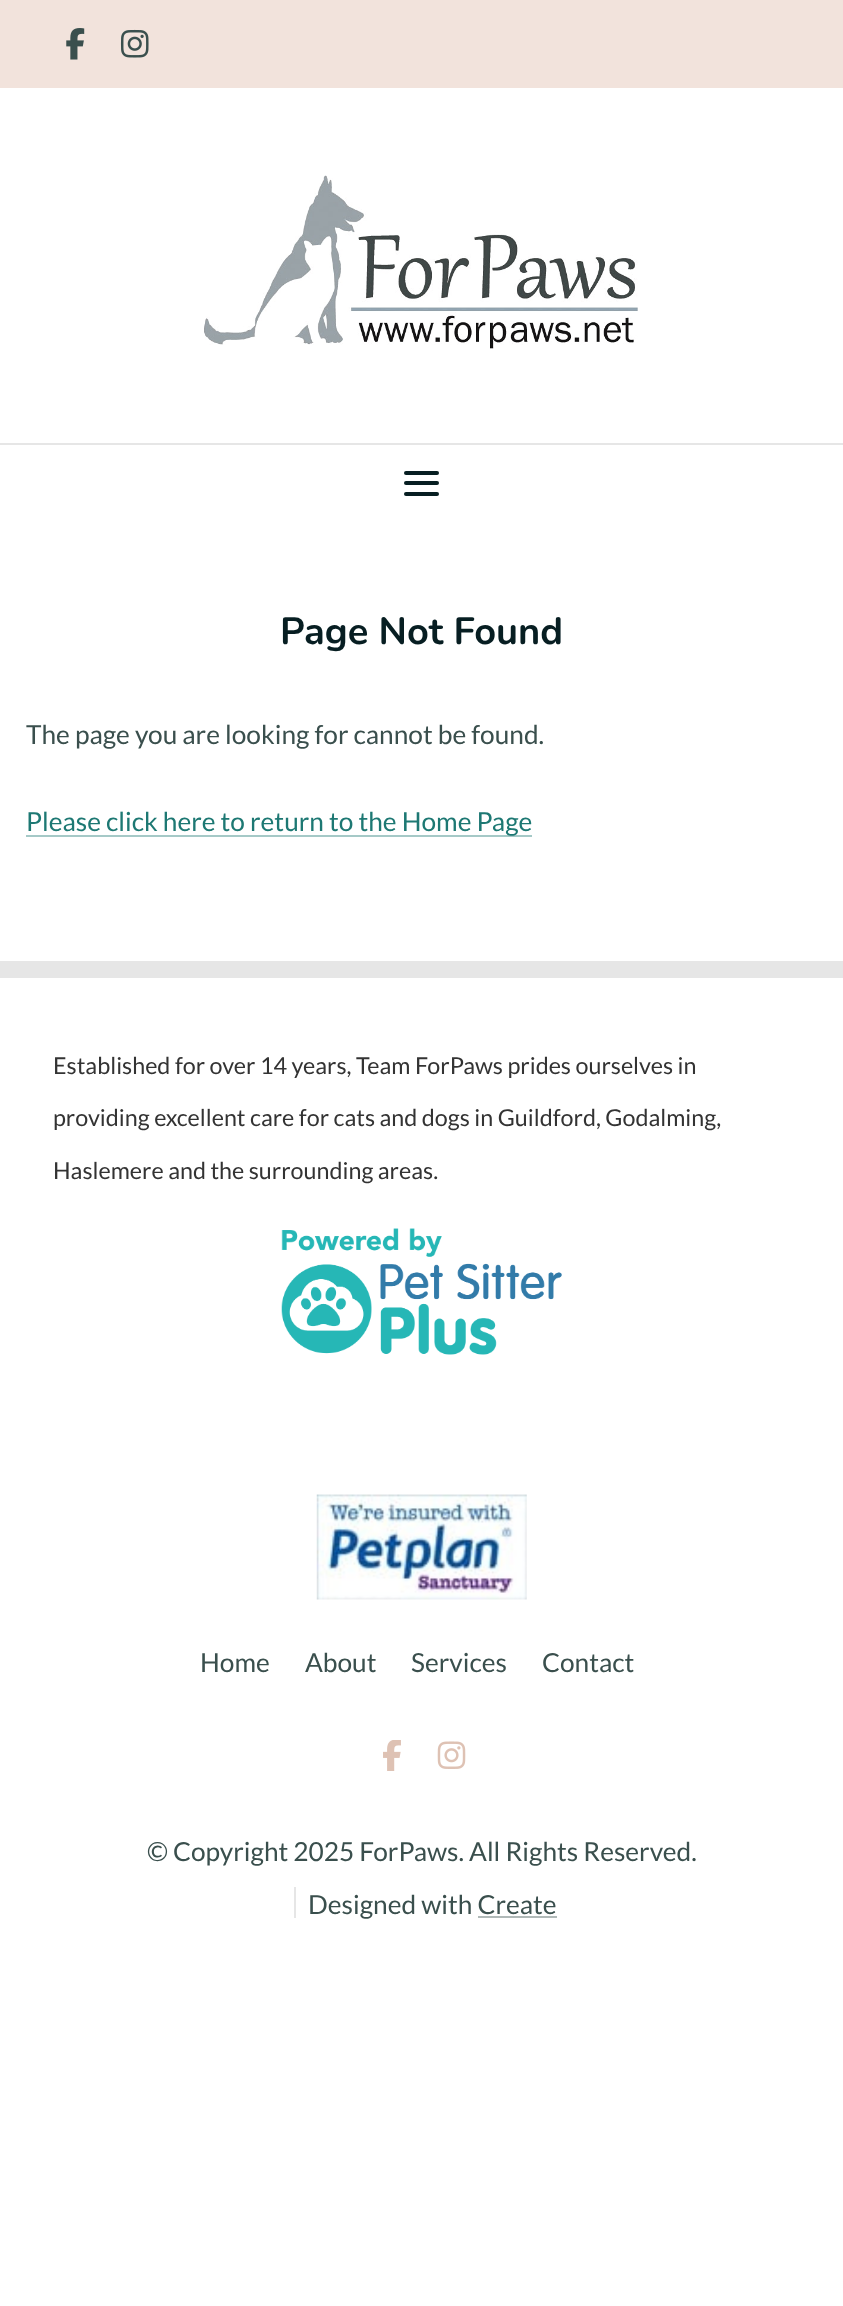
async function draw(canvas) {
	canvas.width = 843;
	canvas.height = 2306;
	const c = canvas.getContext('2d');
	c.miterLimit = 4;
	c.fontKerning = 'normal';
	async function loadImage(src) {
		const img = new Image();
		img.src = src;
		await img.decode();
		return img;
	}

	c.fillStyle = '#fff';
	c.fillRect(0, 0, 843, 2306);
	c.fillStyle = '#f2e3dc';
	c.fillRect(0, 0, 843, 88);
	c.drawImage(await loadImage('img1.png'), 66, 28, 19, 32);
	c.drawImage(await loadImage('img2.png'), 120, 29, 29, 29);
	c.drawImage(await loadImage('img3.png'), 204, 175, 434, 174);
	c.fillStyle = '#e6e6e6';
	c.fillRect(0, 443, 843, 2);
	c.fillStyle = '#071e22';
	c.beginPath();
	c.roundRect(404, 481, 35, 4, 2);
	c.fill();
	c.beginPath();
	c.roundRect(404, 471, 35, 4, 2);
	c.fill();
	c.beginPath();
	c.roundRect(404, 492, 35, 4, 2);
	c.fill();
	c.font = 'bold 38px Nunito';
	c.fillText('Page Not Found', 280, 644);
	c.font = '26.25px Lato';
	c.fillStyle = '#3a4f4d';
	c.fillText('The page you are looking for cannot be found.', 26, 744);
	c.fillStyle = '#a5c9c7';
	c.fillRect(26, 835, 506, 2);
	c.fillStyle = '#1d7873';
	c.fillText('Please click here to return to the Home Page', 26, 831);
	c.fillStyle = '#e6e6e6';
	c.fillRect(0, 961, 843, 17);
	c.font = '23.3px Lato';
	c.fillStyle = '#333';
	for (const [text, x, y] of [
		['Established for over 14 years, Team ForPaws prides ourselves in', 53, 1074],
		['providing excellent care for cats and dogs in Guildford, Godalming,', 53, 1126],
		['Haslemere and the surrounding areas.', 53, 1179],
	]) {
		c.fillText(text, x, y);
	}
	c.drawImage(await loadImage('img4.png'), 281, 1228, 281, 127);
	c.drawImage(await loadImage('img5.png'), 316, 1494, 211, 106);
	c.font = '26.25px Lato';
	c.fillStyle = '#3a4f4d';
	for (const [text, x, y] of [
		['Home', 200, 1672],
		['About', 305, 1672],
		['Services', 411, 1672],
		['Contact', 542, 1672],
	]) {
		c.fillText(text, x, y);
	}
	c.drawImage(await loadImage('img6.png'), 383, 1740, 18, 31);
	c.drawImage(await loadImage('img7.png'), 437, 1741, 29, 28);
	c.fillText('© Copyright 2025 ForPaws. All Rights Reserved.', 147, 1861);
	c.fillStyle = '#e6e6e6';
	c.fillRect(294, 1887, 2, 31);
	c.fillStyle = '#3a4f4d';
	c.fillText('Designed with Create', 308, 1914);
	c.fillStyle = '#b0b9b8';
	c.fillRect(478, 1916, 79, 2);
}

draw(document.querySelector('canvas'));
